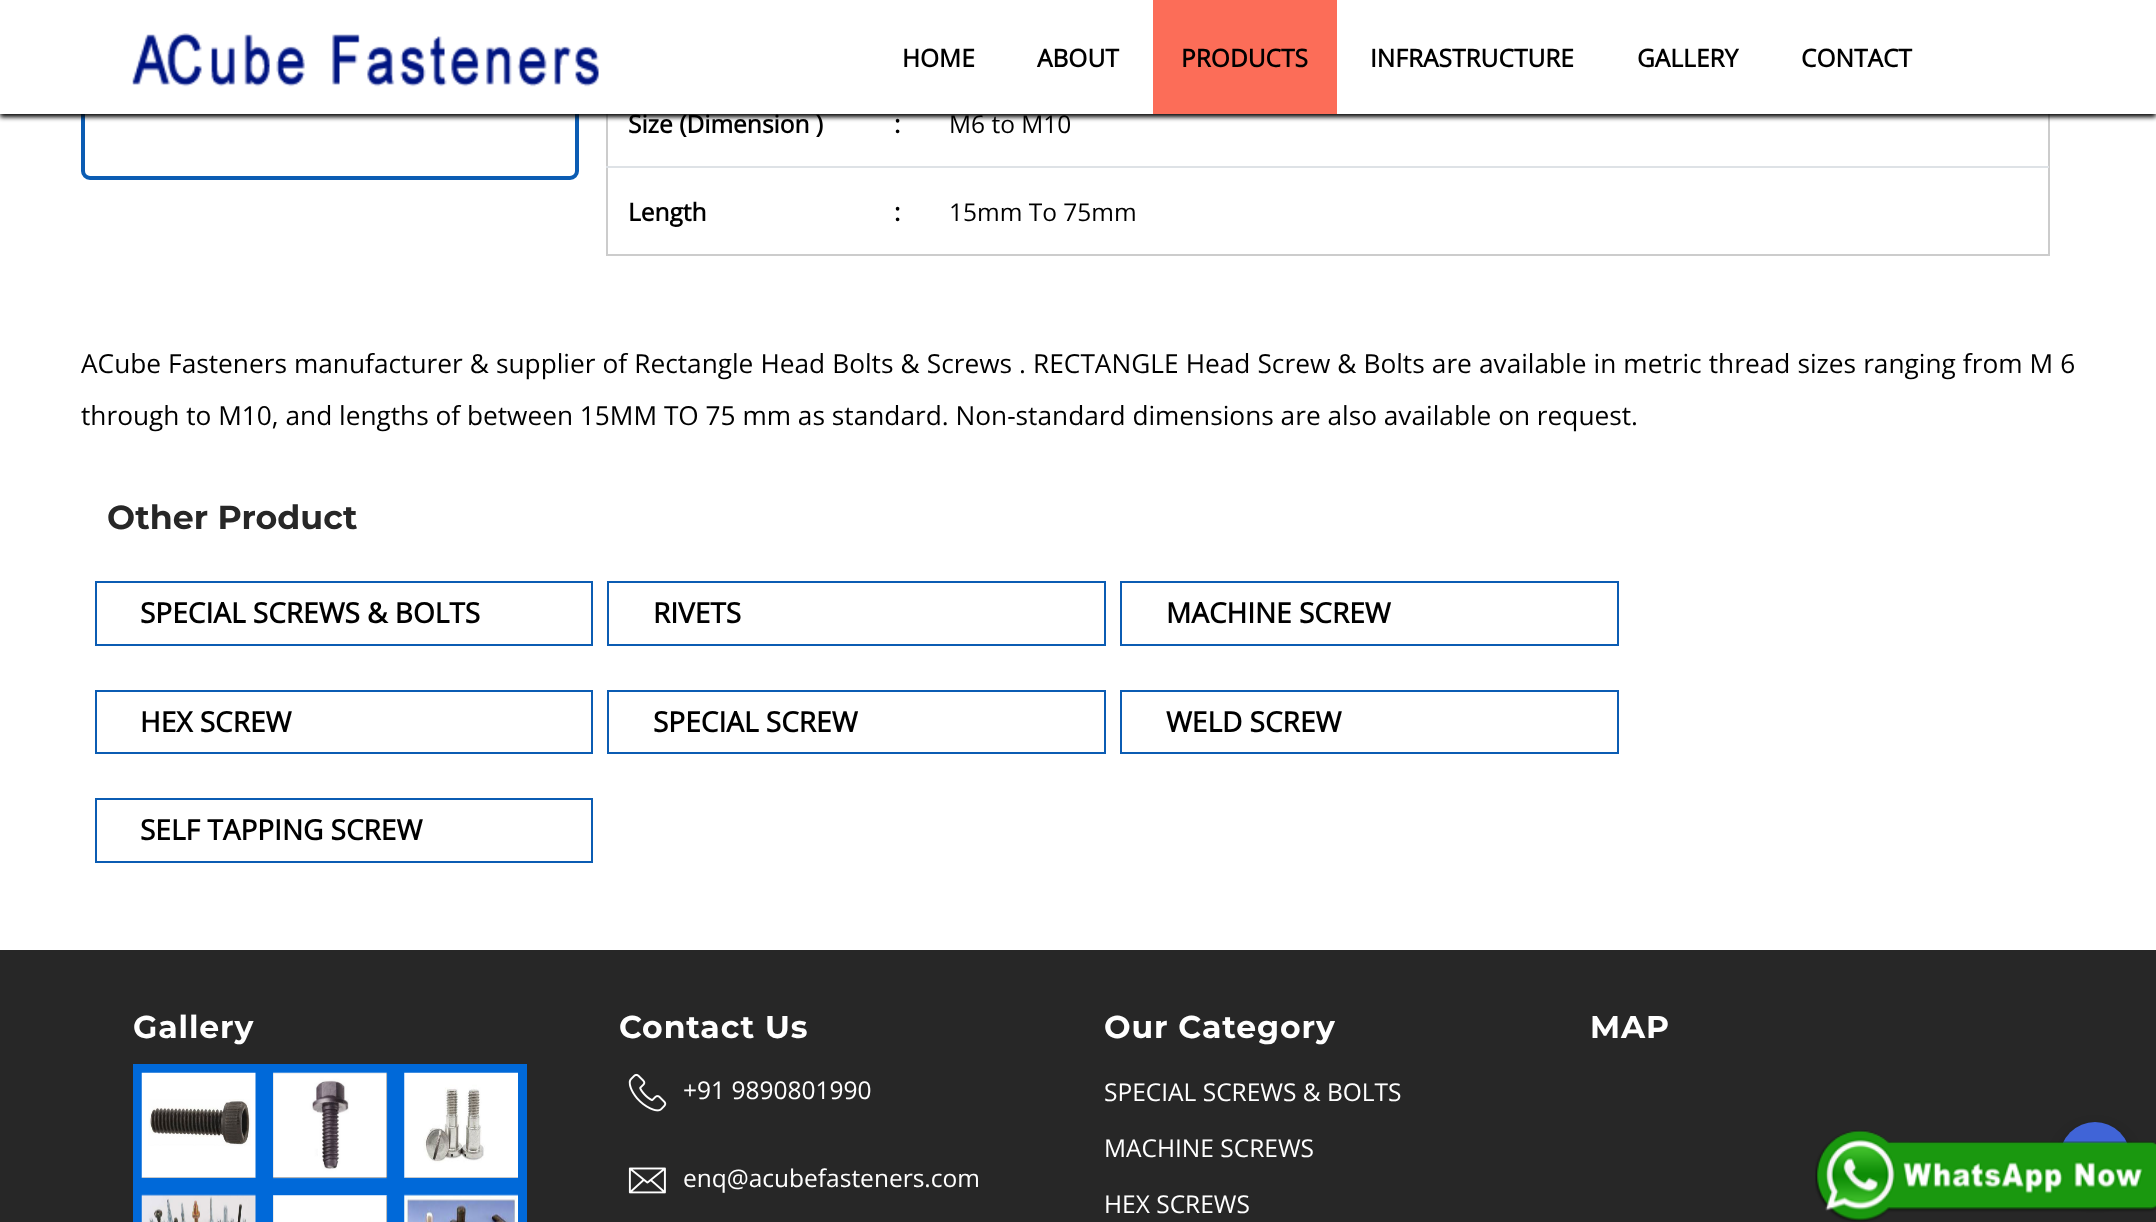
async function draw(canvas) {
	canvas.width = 2156;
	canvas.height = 1222;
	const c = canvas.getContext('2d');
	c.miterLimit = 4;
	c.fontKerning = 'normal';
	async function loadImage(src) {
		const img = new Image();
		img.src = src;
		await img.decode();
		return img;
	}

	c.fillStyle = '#fff';
	c.fillRect(0, 0, 2156, 1222);
	c.beginPath();
	c.roundRect(83, -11, 494, 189, 7);
	c.strokeStyle = '#0b5cb3';
	c.lineWidth = 4;
	c.stroke();
	for (const [x, y, w, h, color] of [
		[2048, 114, 2, 142, '#ccc'],
		[606, 254, 1443, 2, '#ccc'],
		[606, 114, 2, 142, '#ccc'],
	]) {
		c.fillStyle = color;
		c.fillRect(x, y, w, h);
	}
	c.fillStyle = '#000';
	c.filter = 'blur(2.5px)';
	c.beginPath();
	c.rect(0, 4, 2156, 113);
	c.fill();
	c.filter = 'none';
	c.fillStyle = '#fff';
	c.fillRect(0, 0, 2156, 114);
	c.drawImage(await loadImage('img1.png'), 132, 33, 467, 54);
	c.font = 'bold 24.5px Open Sans';
	c.fillStyle = '#000';
	c.fillText('HOME', 902, 67);
	c.fillText('ABOUT', 1037, 67);
	c.fillStyle = '#fc6d58';
	c.fillRect(1153, 0, 184, 114);
	c.fillStyle = '#000';
	for (const [text, x, y] of [
		['PRODUCTS', 1181, 67],
		['INFRASTRUCTURE', 1370, 67],
		['GALLERY', 1637, 67],
		['CONTACT', 1801, 67],
		['Size (Dimension )', 628, 133],
		[':', 894, 133],
	]) {
		c.fillText(text, x, y);
	}
	c.font = '24.5px Open Sans';
	c.fillText('M6 to M10', 949, 133);
	c.font = 'bold 24.5px Open Sans';
	c.fillText('Length', 628, 221);
	c.fillText(':', 894, 221);
	c.fillStyle = '#dee2e6';
	c.fillRect(606, 166, 1443, 2);
	c.font = '24.5px Open Sans';
	c.fillStyle = '#000';
	c.fillText('15mm To 75mm', 949, 221);
	c.wordSpacing = '0.25px';
	c.font = '26.25px Open Sans';
	c.fillText('ACube Fasteners manufacturer & supplier of Rectangle Head Bolts & Screws . RECTANGLE Head Screw & Bolts are available in metric thread sizes ranging from M 6', 81, 373);
	c.wordSpacing = '0px';
	c.fillText('through to M10, and lengths of between 15MM TO 75 mm as standard. Non-standard dimensions are also available on request.', 81, 425);
	c.font = 'bold 33.25px Montserrat';
	c.fillStyle = '#272727';
	c.fillText('Other Product', 107, 529);
	c.lineWidth = 2;
	c.strokeRect(96, 582, 496, 63);
	c.font = 'bold 28px Open Sans';
	c.fillStyle = '#000';
	c.fillText('SPECIAL SCREWS & BOLTS', 140, 623);
	c.strokeRect(608, 582, 497, 63);
	c.fillText('RIVETS', 653, 623);
	c.strokeRect(1121, 582, 497, 63);
	c.fillText('MACHINE SCREW', 1166, 623);
	c.strokeRect(96, 691, 496, 62);
	c.fillText('HEX SCREW', 140, 732);
	c.strokeRect(608, 691, 497, 62);
	c.fillText('SPECIAL SCREW', 653, 732);
	c.strokeRect(1121, 691, 497, 62);
	c.fillText('WELD SCREW', 1166, 732);
	c.strokeRect(96, 799, 496, 63);
	c.fillText('SELF TAPPING SCREW', 140, 840);
	c.fillStyle = '#272727';
	c.fillRect(0, 950, 2156, 272);
	c.letterSpacing = '0.9px';
	c.font = 'bold 31.5px Montserrat';
	c.fillStyle = '#fff';
	c.fillText('Gallery', 133, 1038);
	c.strokeStyle = '#0069d9';
	c.lineWidth = 9;
	c.strokeRect(137.5, 1068.5, 122, 114);
	c.drawImage(await loadImage('img2.png'), 141, 1072, 115, 106);
	c.strokeRect(268.5, 1068.5, 123, 114);
	c.drawImage(await loadImage('img3.png'), 273, 1072, 115, 107);
	c.strokeRect(400.5, 1068.5, 122, 114);
	c.drawImage(await loadImage('img4.png'), 404, 1072, 114, 106);
	c.strokeRect(137.5, 1191.5, 122, 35);
	c.drawImage(await loadImage('img5.png'), 141, 1194, 115, 28);
	c.strokeRect(268.5, 1191.5, 123, 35);
	c.drawImage(await loadImage('img6.png'), 273, 1195, 115, 27);
	c.strokeRect(400.5, 1191.5, 122, 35);
	c.drawImage(await loadImage('img7.png'), 404, 1194, 114, 28);
	c.fillText('Contact Us', 619, 1038);
	c.drawImage(await loadImage('img8.png'), 628, 1073, 39, 39);
	c.letterSpacing = '0px';
	c.font = '24.5px Open Sans';
	c.fillText('+91 9890801990', 683, 1099);
	c.drawImage(await loadImage('img9.png'), 628, 1167, 38, 27);
	c.fillText('enq@acubefasteners.com', 683, 1187);
	c.letterSpacing = '0.9px';
	c.font = 'bold 31.5px Montserrat';
	c.fillText('Our Category', 1104, 1038);
	c.letterSpacing = '0px';
	c.font = '24.5px Open Sans';
	for (const [text, x, y] of [
		['SPECIAL SCREWS & BOLTS', 1104, 1101],
		['MACHINE SCREWS', 1104, 1157],
		['HEX SCREWS', 1104, 1213],
	]) {
		c.fillText(text, x, y);
	}
	c.letterSpacing = '0.9px';
	c.font = 'bold 31.5px Montserrat';
	c.fillText('MAP', 1590, 1038);
	c.fillStyle = '#00000047';
	c.filter = 'blur(7px)';
	c.beginPath();
	c.roundRect(2060, 1129, 70, 70, 35);
	c.fill();
	c.filter = 'none';
	c.fillStyle = '#4064d7';
	c.beginPath();
	c.arc(2095, 1157, 35, 0, 2 * Math.PI);
	c.fill();
	c.drawImage(await loadImage('img10.png'), 1815, 1130, 341, 92);
}

draw(document.querySelector('canvas'));
